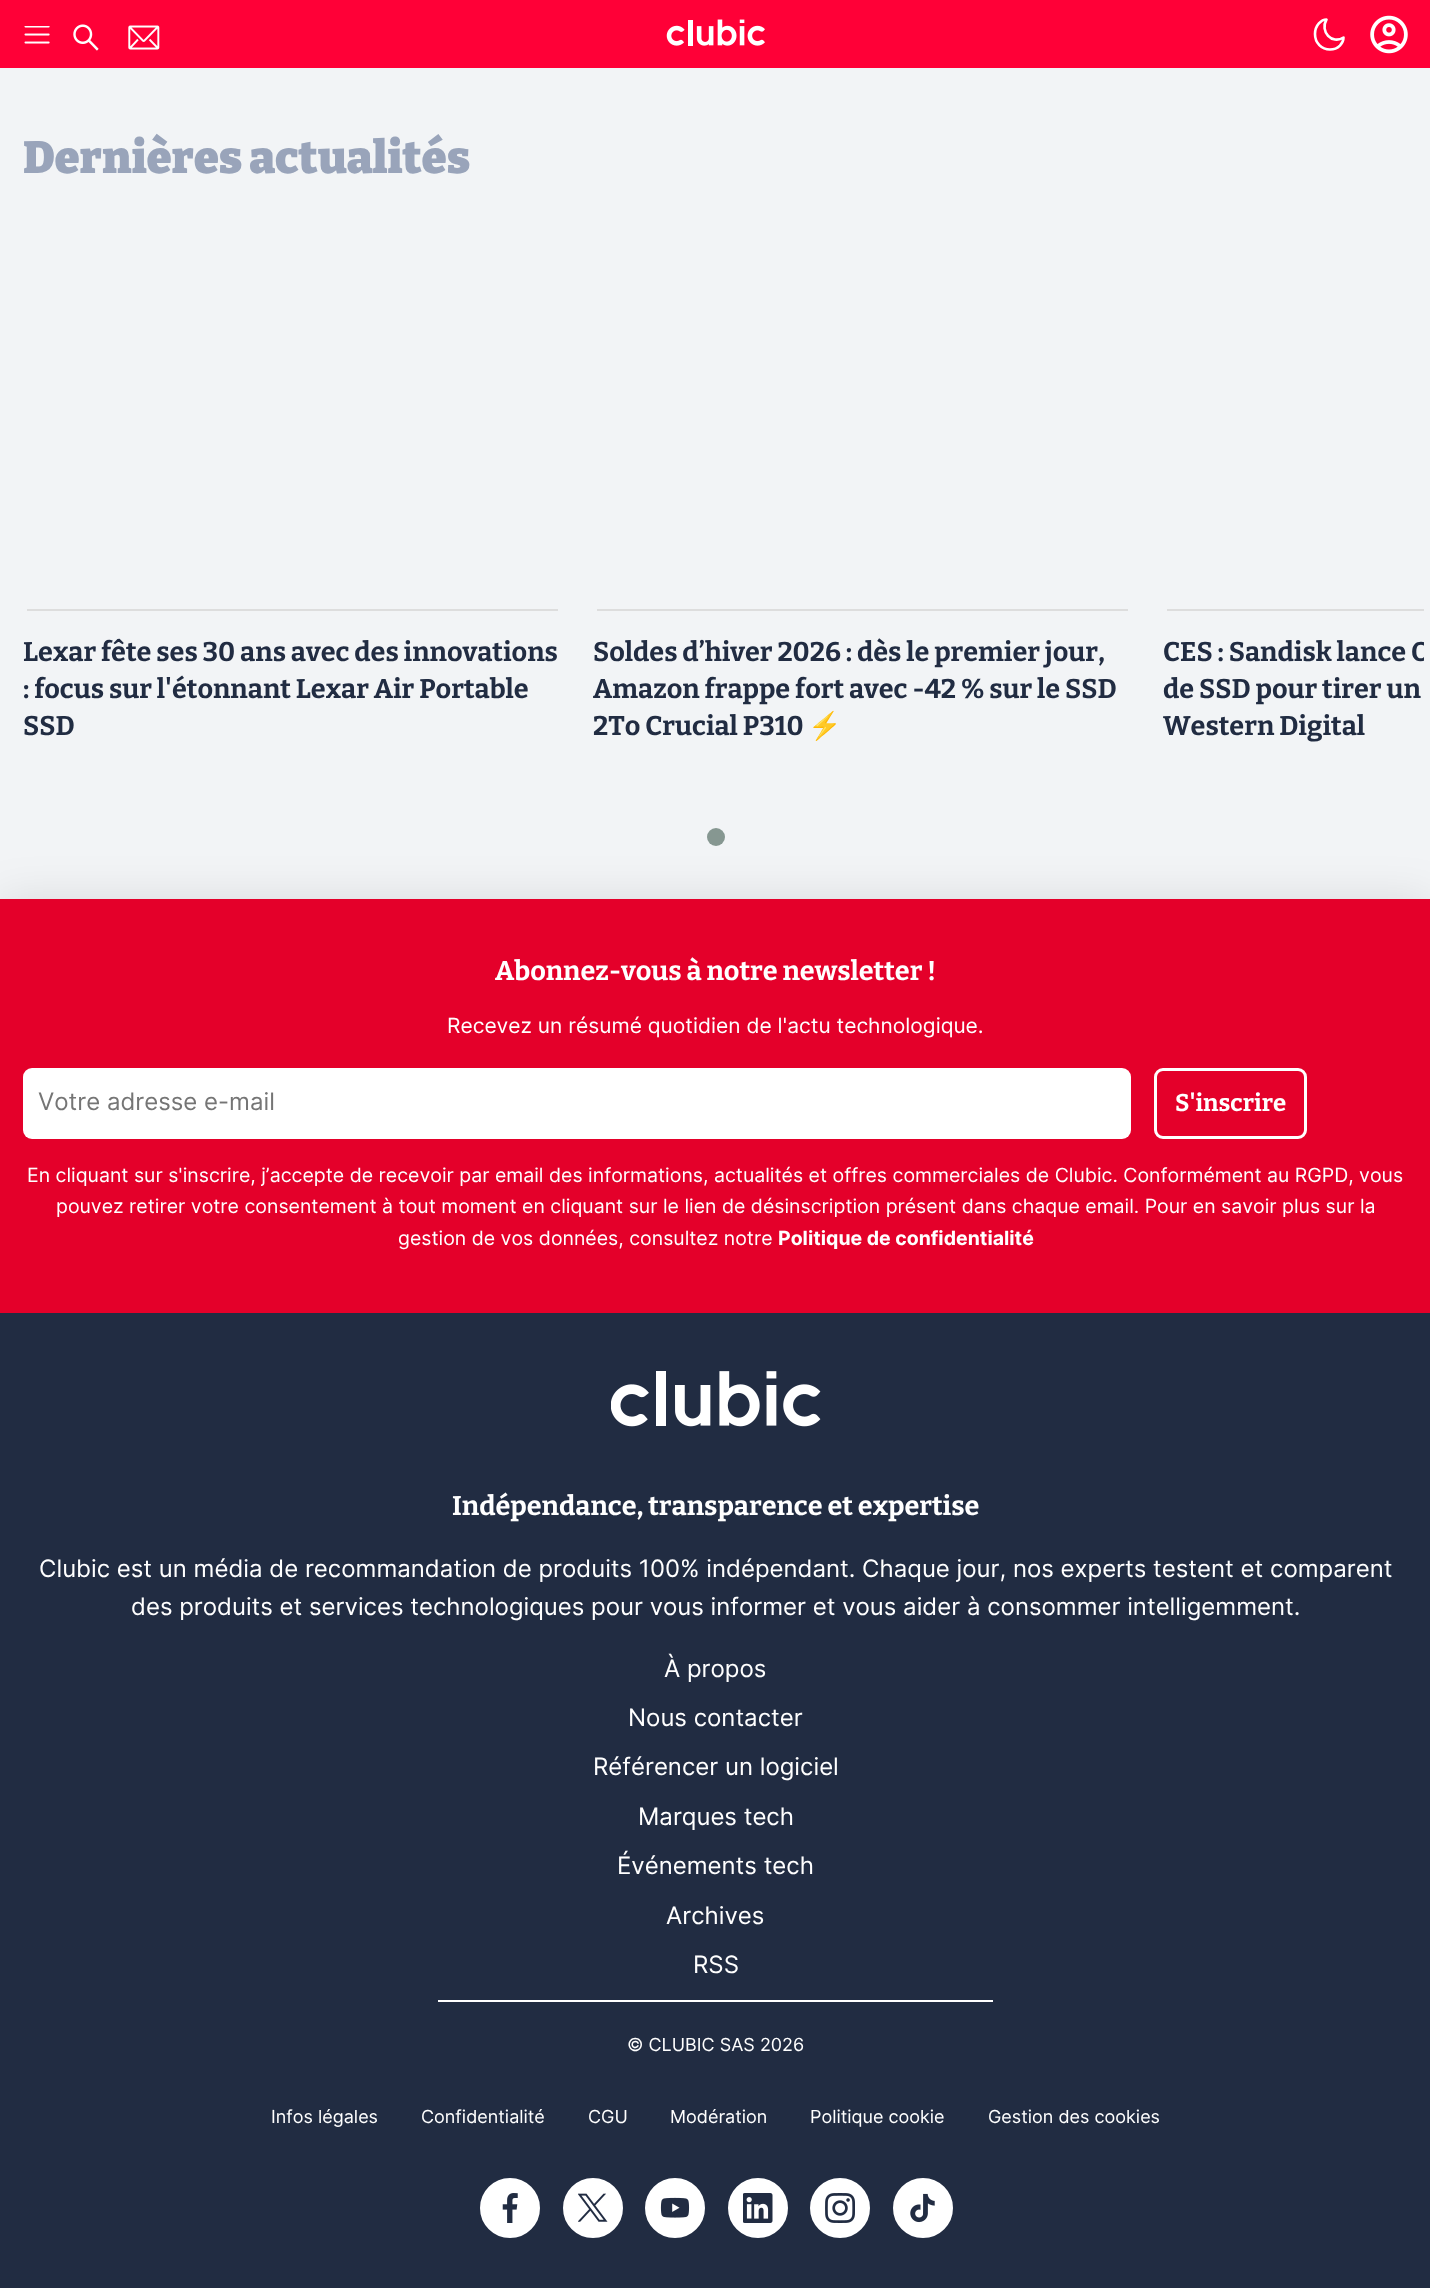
async function draw(canvas) {
	canvas.width = 1430;
	canvas.height = 2288;
	const c = canvas.getContext('2d');
	c.miterLimit = 4;
	c.fontKerning = 'none';
	async function loadImage(src) {
		const img = new Image();
		img.src = src;
		await img.decode();
		return img;
	}

	c.fillStyle = '#f2f4f6';
	c.fillRect(0, 0, 1430, 2288);
	c.fillStyle = '#ff0037';
	c.fillRect(0, 0, 1430, 68);
	c.drawImage(await loadImage('img1.png'), 24, 26, 26, 18);
	c.drawImage(await loadImage('img2.png'), 73, 24, 26, 27);
	c.drawImage(await loadImage('img3.png'), 128, 25, 32, 25);
	c.drawImage(await loadImage('img4.png'), 666, 19, 99, 27);
	c.beginPath();
	c.moveTo(1326.5, 19.5);
	c.bezierCurveTo(1321.5, 19.5, 1315, 25, 1315, 34);
	c.bezierCurveTo(1315, 43, 1321.5, 49.5, 1330, 49.5);
	c.bezierCurveTo(1338.5, 49.5, 1343.5, 43, 1343.5, 37.5);
	c.bezierCurveTo(1332, 45, 1319.5, 31.5, 1326.5, 19.5);
	c.closePath();
	c.strokeStyle = '#fff';
	c.lineWidth = 2.6;
	c.lineCap = 'round';
	c.lineJoin = 'round';
	c.stroke();
	c.drawImage(await loadImage('img5.png'), 1370, 15, 38, 39);
	c.font = '100 45px Bitter';
	c.fillStyle = '#99a4ba';
	c.fillText('Dernières actualités', 23, 173);
	c.fillStyle = '#ddd';
	c.fillRect(27, 609, 531, 2);
	c.font = '100 27px "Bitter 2"';
	c.fillStyle = '#212c42';
	for (const [text, x, y] of [
		['Lexar fête ses 30 ans avec des innovations', 23, 661],
		[': focus sur l\'étonnant Lexar Air Portable', 23, 698],
		['SSD', 23, 735],
	]) {
		c.fillText(text, x, y);
	}
	c.fillStyle = '#ddd';
	c.fillRect(597, 609, 531, 2);
	c.fillStyle = '#212c42';
	for (const [text, x, y] of [
		['Soldes d’hiver 2026 : dès le premier jour,', 593, 661],
		['Amazon frappe fort avec -42 % sur le SSD', 593, 698],
		['2To Crucial P310', 593, 735],
	]) {
		c.fillText(text, x, y);
	}
	c.font = 'bold 27px Noto Color Emoji';
	c.fillText('⚡', 808, 735);
	c.fillStyle = '#ddd';
	c.fillRect(1167, 609, 257, 2);
	c.save();
	c.beginPath();
	c.rect(1163, 633, 261, 113);
	c.clip();
	c.font = '100 27px "Bitter 2"';
	c.fillStyle = '#212c42';
	c.fillText('CES : Sandisk lance O', 1163, 661);
	c.restore();
	c.font = '100 27px "Bitter 2"';
	c.fillStyle = '#212c42';
	c.fillText('de SSD pour tirer un', 1163, 698);
	c.fillText('Western Digital', 1163, 735);
	c.fillStyle = '#869791';
	c.beginPath();
	c.arc(716, 837, 9, 0, 2 * Math.PI);
	c.fill();
	c.fillStyle = '#0000001a';
	c.filter = 'blur(22.5px)';
	c.beginPath();
	c.rect(0, 899, 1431, 414);
	c.fill();
	c.filter = 'none';
	c.fillStyle = '#e4002a';
	c.fillRect(0, 899, 1430, 414);
	c.fillStyle = '#fff';
	c.fillText('Abonnez-vous à notre newsletter !', 495, 980);
	c.font = '21px Inter';
	c.fillText('Recevez un résumé quotidien de l\'actu technologique.', 447, 1033);
	c.beginPath();
	c.roundRect(23, 1068, 1108, 71, 9);
	c.fill();
	c.font = '24px Inter';
	c.fillStyle = '#757575';
	c.fillText('Votre adresse e-mail', 38, 1110);
	c.beginPath();
	c.roundRect(1155.5, 1069.5, 150, 68, 7.5);
	c.lineWidth = 3;
	c.lineJoin = 'miter';
	c.stroke();
	c.font = '100 24px "Bitter 2"';
	c.fillStyle = '#fff';
	c.fillText('S\'inscrire', 1175, 1111);
	c.font = '19.5px Inter';
	for (const [text, x, y] of [
		['En cliquant sur s\'inscrire, j’accepte de recevoir par email des informations, actualités et offres commerciales de Clubic. Conformément', 27, 1182],
		['au RGPD, vous', 1267, 1182],
		['pouvez retirer votre consentement à tout moment en cliquant sur le lien de désinscription présent dans chaque email. Pour en savoir plus sur la', 56, 1213],
		['gestion de vos données, consultez notre', 398, 1245],
	]) {
		c.fillText(text, x, y);
	}
	c.font = 'bold 19.5px Inter';
	c.fillText('Politique de confidentialité', 778, 1245);
	c.fillStyle = '#212c42';
	c.fillRect(0, 1313, 1430, 975);
	c.drawImage(await loadImage('img6.png'), 611, 1371, 210, 56);
	c.font = '100 27px "Bitter 2"';
	c.fillStyle = '#fff';
	c.fillText('Indépendance, transparence et expertise', 452, 1515);
	c.font = '24px Inter';
	for (const [text, x, y] of [
		['Clubic est un média de recommandation de produits 100% indépendant. Chaque jour, nos experts testent et comparent', 39, 1577],
		['des produits et services technologiques pour vous informer et vous aider à consommer intelligemment.', 131, 1615],
		['À propos', 664, 1677],
		['Nous contacter', 628, 1726],
		['Référencer un logiciel', 593, 1775],
		['Marques tech', 638, 1825],
		['Événements tech', 617, 1874],
		['Archives', 666, 1924],
		['RSS', 693, 1973],
	]) {
		c.fillText(text, x, y);
	}
	c.fillRect(438, 2000, 555, 2);
	c.font = '18px Inter';
	for (const [text, x, y] of [
		['© CLUBIC SAS 2026', 627, 2051],
		['Infos légales', 271, 2123],
		['Confidentialité', 421, 2123],
		['CGU', 588, 2123],
		['Modération', 670, 2123],
		['Politique cookie', 810, 2123],
		['Gestion des cookies', 988, 2123],
	]) {
		c.fillText(text, x, y);
	}
	c.beginPath();
	c.arc(510, 2208, 29, 0, 2 * Math.PI);
	c.fill();
	c.lineWidth = 2;
	c.stroke();
	c.drawImage(await loadImage('img7.png'), 502, 2193, 16, 30);
	c.beginPath();
	c.arc(593, 2208, 29, 0, 2 * Math.PI);
	c.fill();
	c.stroke();
	c.drawImage(await loadImage('img8.png'), 578, 2193, 30, 29);
	c.beginPath();
	c.arc(675, 2208, 29, 0, 2 * Math.PI);
	c.fill();
	c.stroke();
	c.drawImage(await loadImage('img9.png'), 660, 2197, 30, 21);
	c.beginPath();
	c.arc(758, 2208, 29, 0, 2 * Math.PI);
	c.fill();
	c.stroke();
	c.drawImage(await loadImage('img10.png'), 743, 2193, 30, 30);
	c.beginPath();
	c.arc(840, 2208, 29, 0, 2 * Math.PI);
	c.fill();
	c.stroke();
	c.drawImage(await loadImage('img11.png'), 825, 2193, 30, 30);
	c.beginPath();
	c.arc(923, 2208, 29, 0, 2 * Math.PI);
	c.fill();
	c.stroke();
	c.drawImage(await loadImage('img12.png'), 910, 2193, 25, 30);
}

draw(document.querySelector('canvas'));
